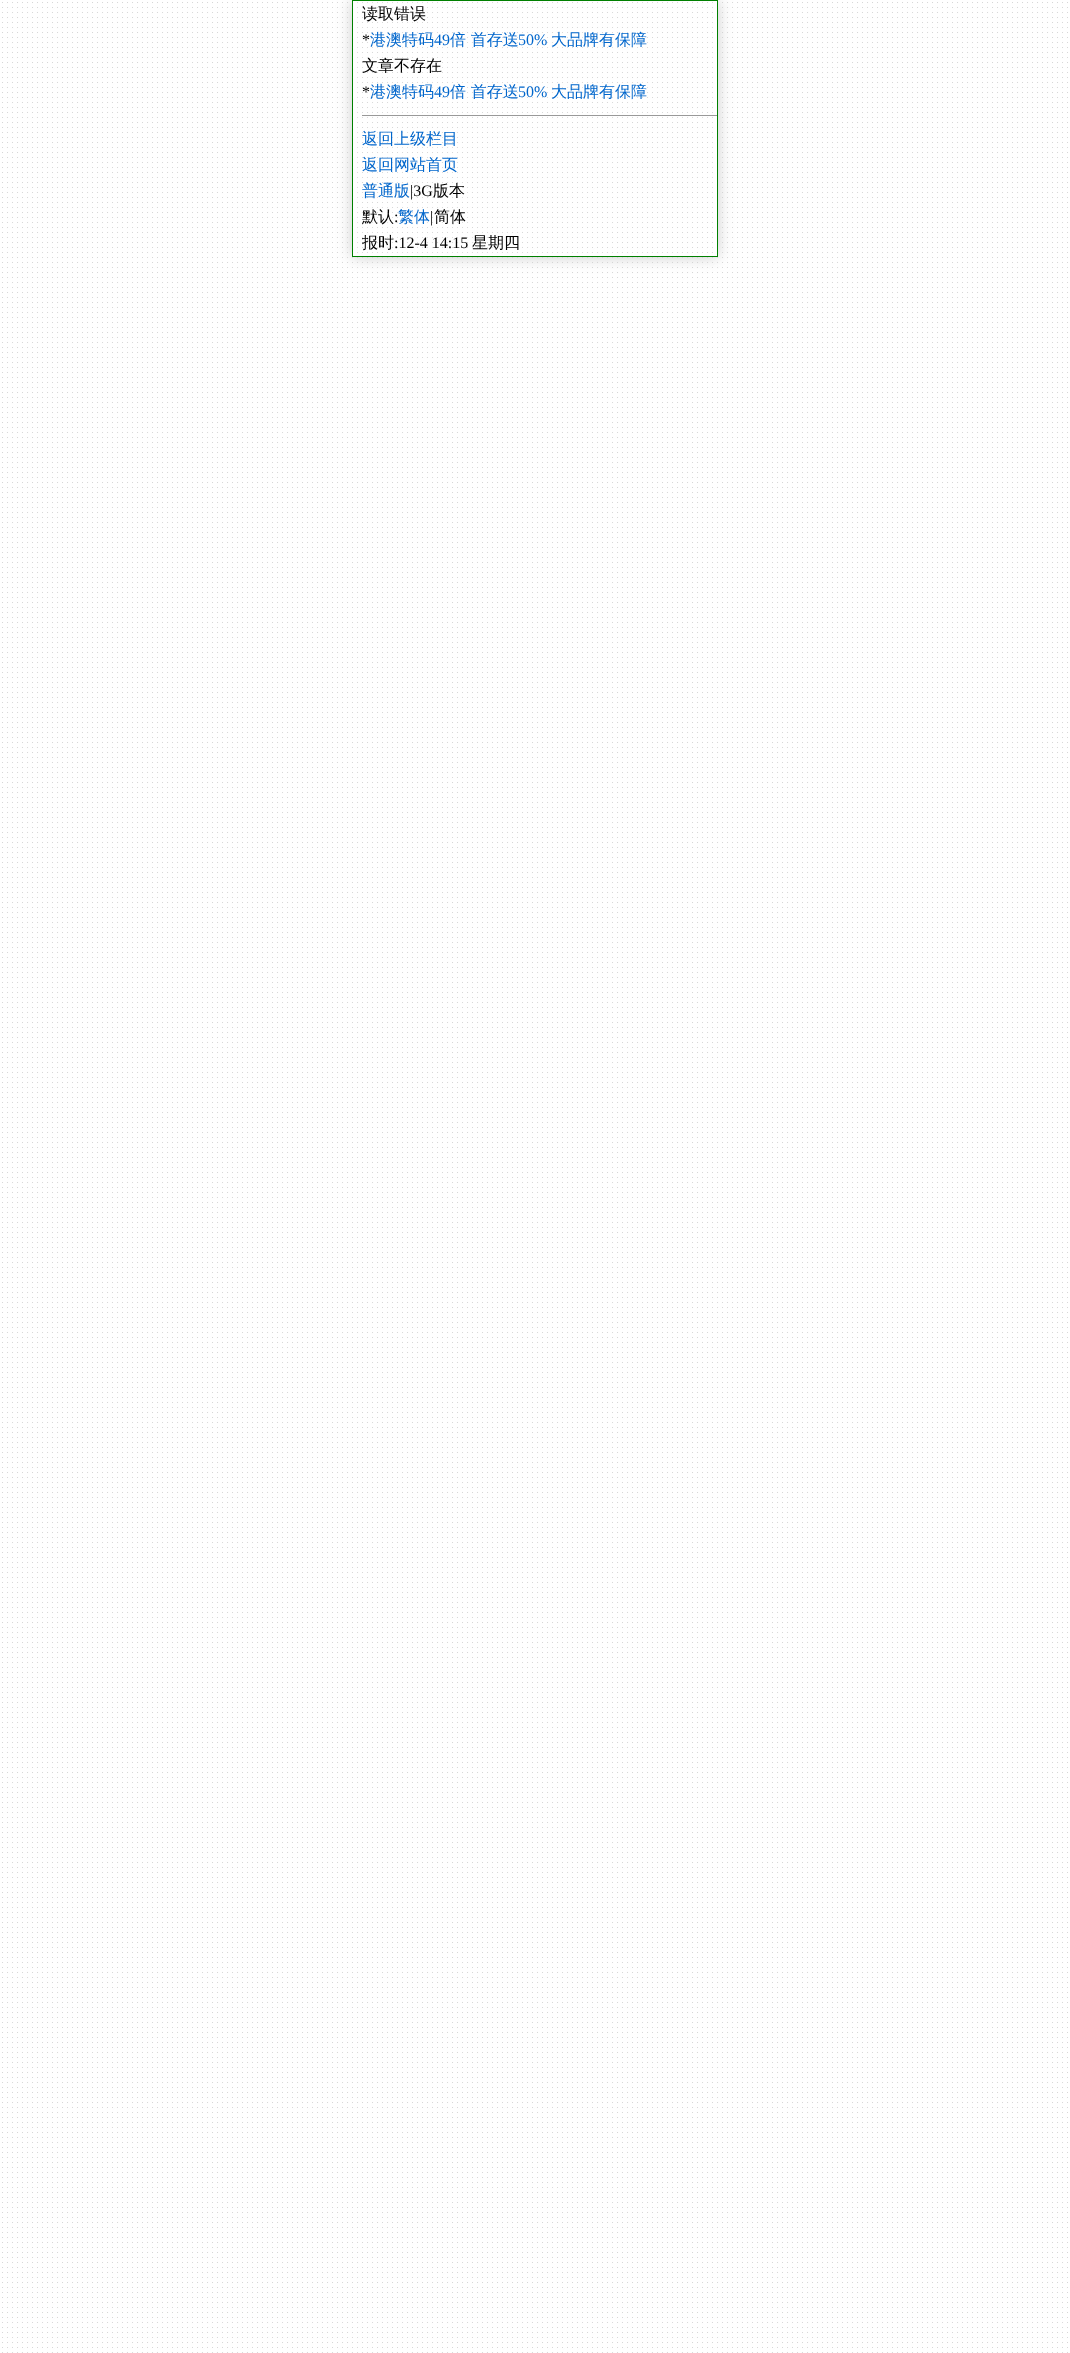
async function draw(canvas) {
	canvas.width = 1070;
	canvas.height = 2353;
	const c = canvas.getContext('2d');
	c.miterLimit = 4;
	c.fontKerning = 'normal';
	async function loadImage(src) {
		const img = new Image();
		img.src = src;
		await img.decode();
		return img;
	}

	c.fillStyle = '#fff';
	c.fillRect(0, 0, 1070, 2353);
	c.drawImage(await loadImage('img1.png'), 2, 2, 1066, 2351);
	c.save();
	c.beginPath();
	c.moveTo(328, 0);
	c.lineTo(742, 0);
	c.lineTo(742, 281);
	c.lineTo(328, 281);
	c.closePath();
	c.moveTo(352, 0);
	c.lineTo(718, 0);
	c.lineTo(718, 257);
	c.lineTo(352, 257);
	c.closePath();
	c.clip('evenodd');
	c.fillStyle = '#ccc';
	c.filter = 'blur(7.5px)';
	c.beginPath();
	c.rect(352, 0, 366, 257);
	c.fill();
	c.filter = 'none';
	c.restore();
	c.strokeStyle = '#008000';
	c.strokeRect(352.5, 0.5, 365, 256);
	c.font = '500 16px WenQuanYi Zen Hei';
	c.fillStyle = '#000';
	c.fillText('读取错误', 362, 19);
	c.font = '16px Liberation Serif';
	c.fillText('*', 362, 45);
	c.font = '500 16px WenQuanYi Zen Hei';
	c.fillStyle = '#06c';
	c.fillText('港澳特码', 370, 45);
	c.font = '16px Liberation Serif';
	c.fillText('49', 434, 45);
	c.font = '500 16px WenQuanYi Zen Hei';
	c.fillText('倍 首存送', 450, 45);
	c.font = '16px Liberation Serif';
	c.fillText('50%', 518, 45);
	c.font = '500 16px WenQuanYi Zen Hei';
	c.fillText('大品牌有保障', 551, 45);
	c.fillStyle = '#000';
	c.fillText('文章不存在', 362, 71);
	c.font = '16px Liberation Serif';
	c.fillText('*', 362, 97);
	c.font = '500 16px WenQuanYi Zen Hei';
	c.fillStyle = '#06c';
	c.fillText('港澳特码', 370, 97);
	c.font = '16px Liberation Serif';
	c.fillText('49', 434, 97);
	c.font = '500 16px WenQuanYi Zen Hei';
	c.fillText('倍 首存送', 450, 97);
	c.font = '16px Liberation Serif';
	c.fillText('50%', 518, 97);
	c.font = '500 16px WenQuanYi Zen Hei';
	c.fillText('大品牌有保障', 551, 97);
	c.fillStyle = '#999';
	c.fillRect(362, 115, 355, 1);
	c.fillStyle = '#06c';
	for (const [text, x, y] of [
		['返回上级栏目', 362, 144],
		['返回网站首页', 362, 170],
		['普通版', 362, 196],
	]) {
		c.fillText(text, x, y);
	}
	c.font = '16px Liberation Serif';
	c.fillStyle = '#000';
	c.fillText('|3G', 410, 196);
	c.font = '500 16px WenQuanYi Zen Hei';
	c.fillText('版本', 433, 196);
	c.fillText('默认', 362, 222);
	c.font = '16px Liberation Serif';
	c.fillText(':', 394, 222);
	c.font = '500 16px WenQuanYi Zen Hei';
	c.fillStyle = '#06c';
	c.fillText('繁体', 398, 222);
	c.font = '16px Liberation Serif';
	c.fillStyle = '#000';
	c.fillText('|', 430, 222);
	c.font = '500 16px WenQuanYi Zen Hei';
	c.fillText('简体', 434, 222);
	c.fillText('报时', 362, 248);
	c.font = '16px Liberation Serif';
	c.fillText(':12-4 14:15', 394, 248);
	c.font = '500 16px WenQuanYi Zen Hei';
	c.fillText('星期四', 472, 248);
}

draw(document.querySelector('canvas'));
